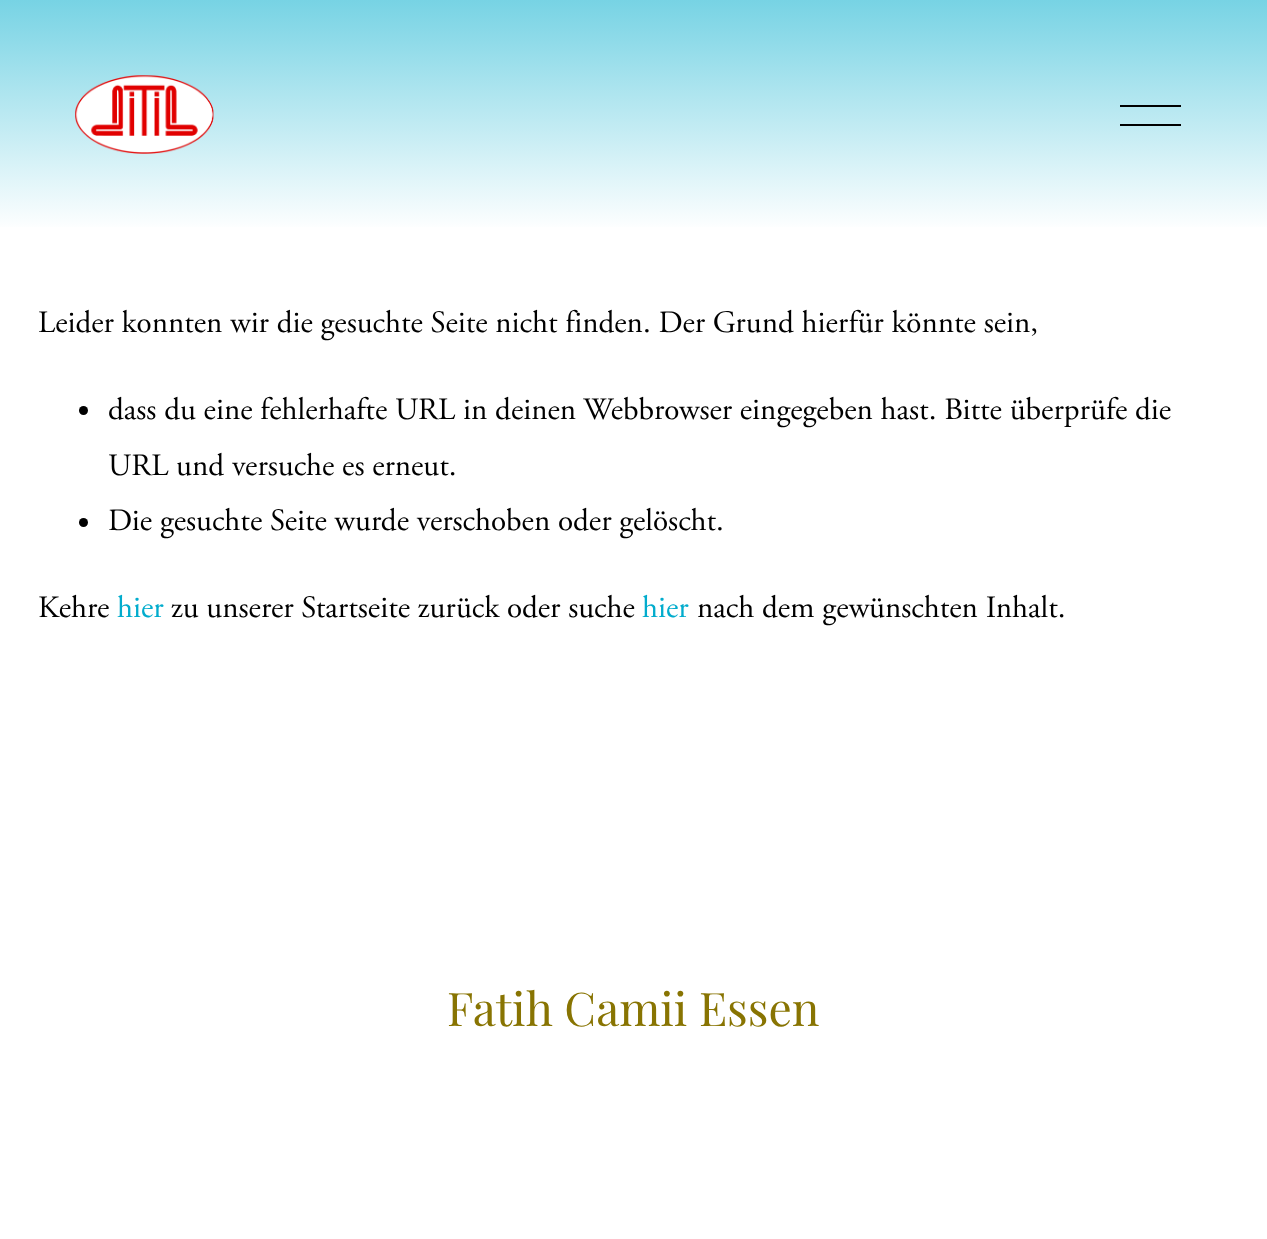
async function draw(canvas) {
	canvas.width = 1267;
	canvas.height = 1239;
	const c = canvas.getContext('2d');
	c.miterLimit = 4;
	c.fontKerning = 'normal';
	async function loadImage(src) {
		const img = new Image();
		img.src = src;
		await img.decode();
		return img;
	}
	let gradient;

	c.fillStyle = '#fff';
	c.fillRect(0, 0, 1267, 1239);
	gradient = c.createLinearGradient(634, 0, 634, 231);
	gradient.addColorStop(0, '#77d3e4');
	gradient.addColorStop(1, '#fff');
	c.fillStyle = gradient;
	c.fillRect(0, 0, 1267, 227);
	c.drawImage(await loadImage('img1.png'), 75, 75, 139, 79);
	c.fillStyle = '#000';
	c.fillRect(1120, 105, 61, 2);
	c.fillRect(1120, 124, 61, 2);
	c.font = '31.05px Adobe Garamond';
	c.fillText('Leider konnten wir die gesuchte Seite nicht finden. Der Grund hierfür könnte sein,', 38, 332);
	c.beginPath();
	c.arc(83.5, 410.5, 4.5, 0, 2 * Math.PI);
	c.fill();
	c.fillText('dass du eine fehlerhafte URL in deinen Webbrowser eingegeben hast. Bitte überprüfe die', 108, 419);
	c.fillText('URL und versuche es erneut.', 108, 475);
	c.beginPath();
	c.arc(83.5, 522.5, 4.5, 0, 2 * Math.PI);
	c.fill();
	c.fillText('Die gesuchte Seite wurde verschoben oder gelöscht.', 108, 530);
	c.fillText('Kehre', 38, 617);
	c.fillStyle = '#02accd';
	c.fillText('hier', 117, 617);
	c.fillStyle = '#000';
	c.fillText('zu unserer Startseite zurück oder suche', 171, 617);
	c.fillStyle = '#02accd';
	c.fillText('hier', 642, 617);
	c.fillStyle = '#000';
	c.fillText('nach dem gewünschten Inhalt.', 697, 617);
	c.font = '46.25px Playfair Display';
	c.fillStyle = '#887402';
	c.fillText('Fatih Camii Essen', 447, 1026);
}

draw(document.querySelector('canvas'));
